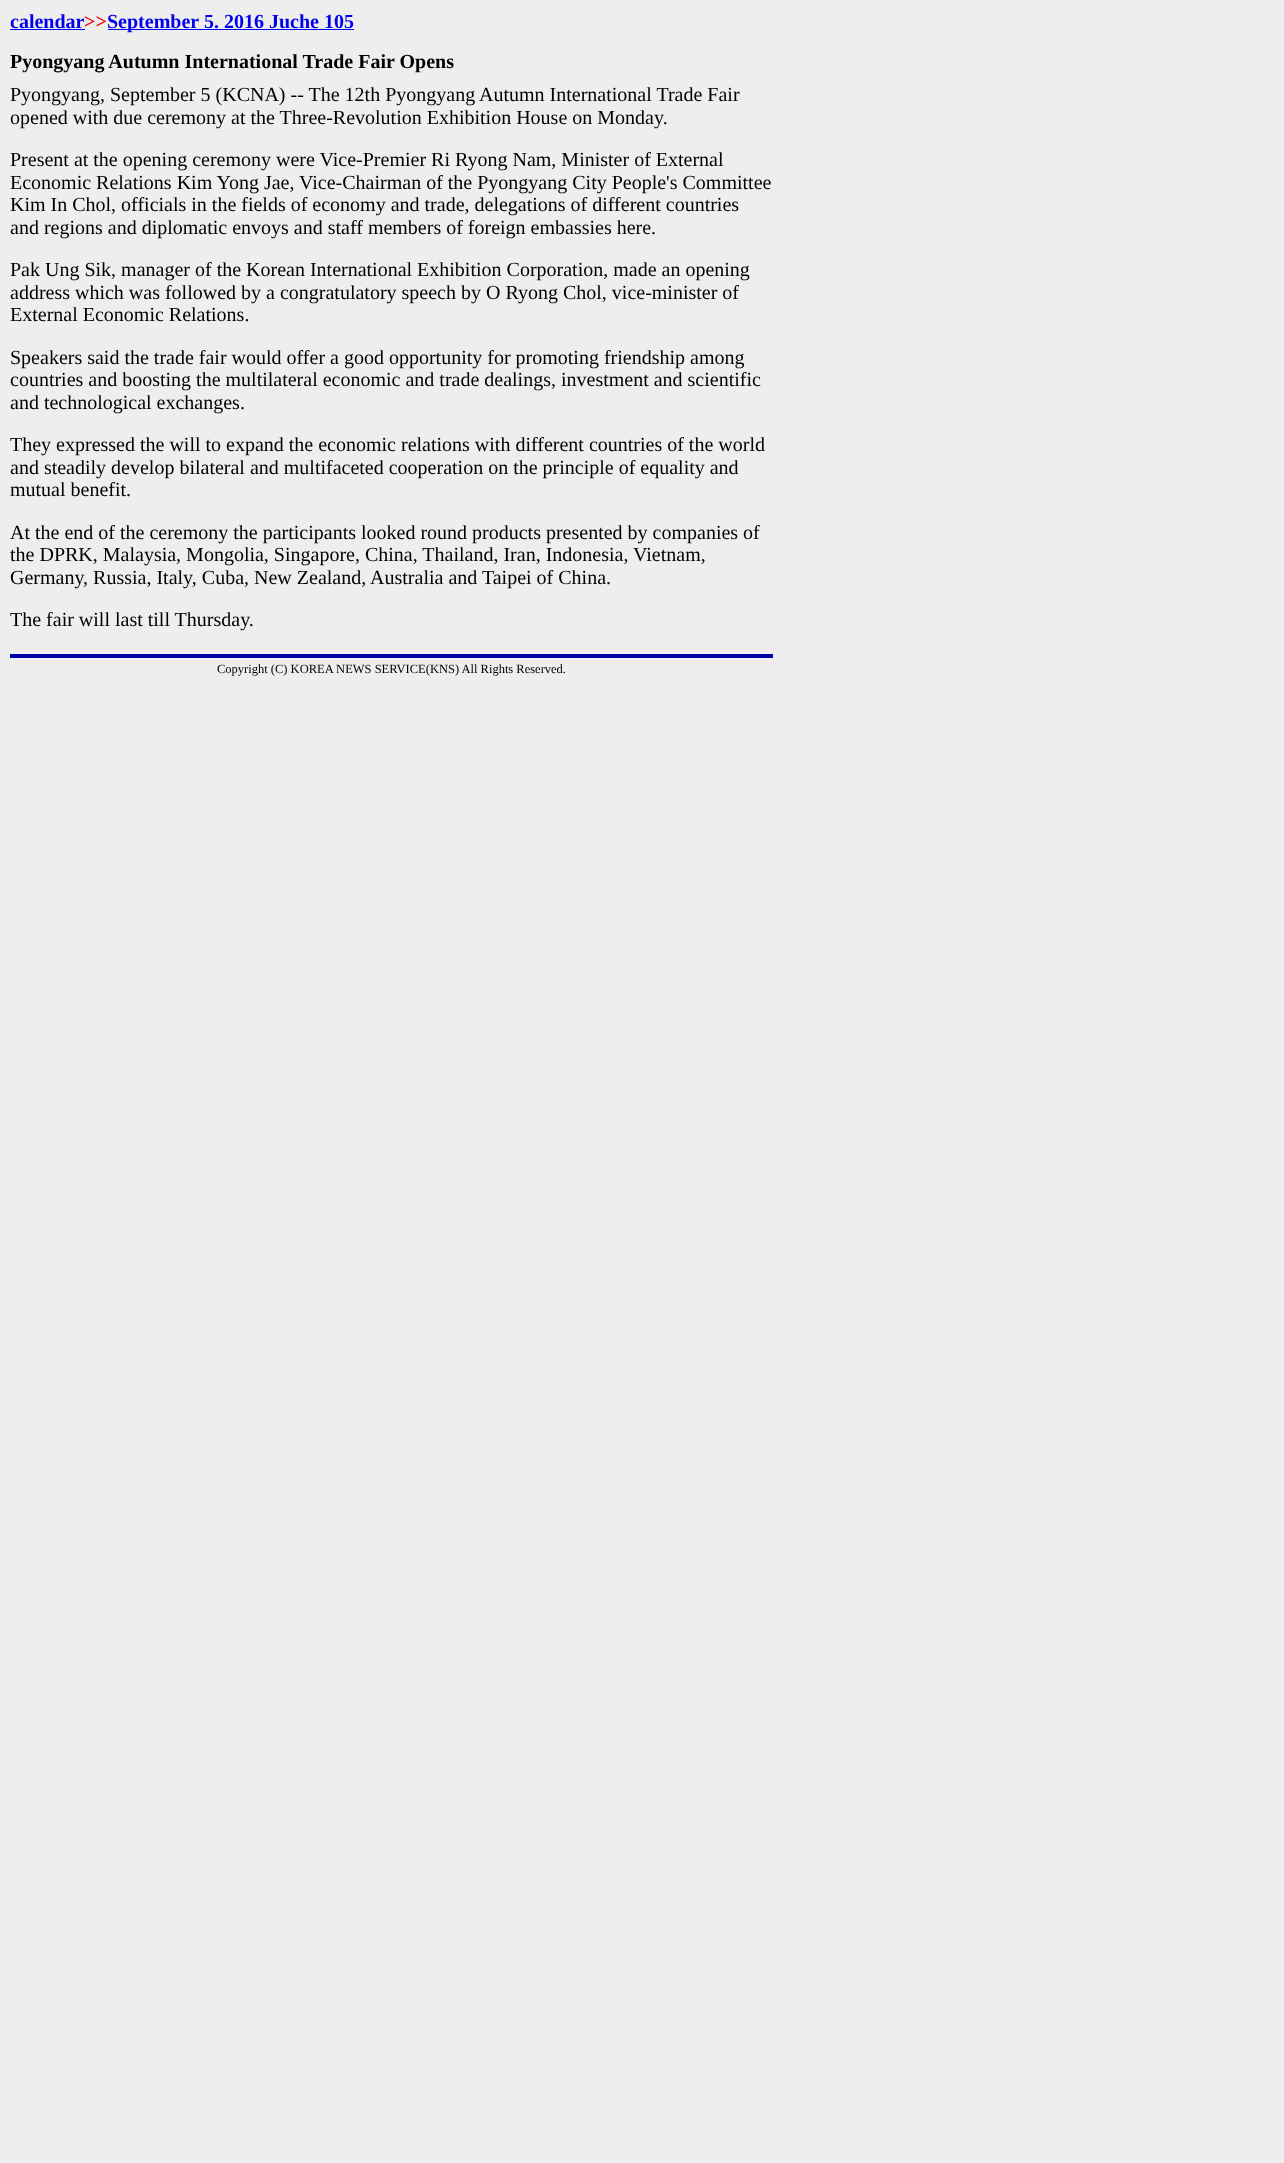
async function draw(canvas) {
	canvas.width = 1284;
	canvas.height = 2163;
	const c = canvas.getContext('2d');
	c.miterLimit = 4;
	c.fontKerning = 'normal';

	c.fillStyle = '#eee';
	c.fillRect(0, 0, 1284, 2163);
	c.font = 'bold 20px Liberation Serif';
	c.fillStyle = '#00e';
	c.fillText('calendar', 10, 28);
	c.fillRect(10, 29, 75, 1);
	c.fillStyle = '#e00';
	c.fillText('>>', 84, 28);
	c.fillStyle = '#00e';
	c.fillRect(108, 29, 246, 1);
	c.fillText('September', 107, 28);
	c.fillText('5. 2016 Juche 105', 204, 28);
	c.fillStyle = '#000';
	c.fillText('Pyongyang Autumn International Trade Fair Opens', 10, 68);
	c.font = '20px Liberation Serif';
	for (const [text, x, y] of [
		['Pyongyang, September 5 (KCNA) -- The 12th Pyongyang Autumn International Trade Fair', 10, 101],
		['opened with due ceremony at the Three-Revolution Exhibition House on Monday.', 10, 124],
		['Present at the opening ceremony were Vice-Premier Ri Ryong Nam, Minister of External', 10, 166],
		['Economic Relations Kim Yong Jae, Vice-Chairman of the Pyongyang City People\'s Committee', 10, 189],
		['Kim In Chol, officials in the fields of economy and trade, delegations of different countries', 10, 211],
		['and regions and diplomatic envoys and staff members of foreign embassies here.', 10, 234],
		['Pak Ung Sik, manager of the Korean International Exhibition Corporation, made an opening', 10, 276],
		['address which was followed by a congratulatory speech by O Ryong Chol, vice-minister of', 10, 299],
		['External Economic Relations.', 10, 321],
		['Speakers said the trade fair would offer a good opportunity for promoting friendship among', 10, 364],
		['countries and boosting the multilateral economic and trade dealings, investment and scientific', 10, 386],
		['and technological exchanges.', 10, 409],
		['They expressed the will to expand the economic relations with different countries of the world', 10, 451],
		['and steadily develop bilateral and multifaceted cooperation on the principle of equality and', 10, 474],
		['mutual benefit.', 10, 496],
		['At the end of the ceremony the participants looked round products presented by companies of', 10, 539],
		['the DPRK, Malaysia, Mongolia, Singapore, China, Thailand, Iran, Indonesia, Vietnam,', 10, 561],
		['Germany, Russia, Italy, Cuba, New Zealand, Australia and Taipei of China.', 10, 584],
		['The fair will last till Thursday.', 10, 626],
	]) {
		c.fillText(text, x, y);
	}
	c.fillStyle = '#00a';
	c.fillRect(10, 654, 763, 4);
	c.font = '12.5px Liberation Serif';
	c.fillStyle = '#000';
	c.fillText('Copyright (C) KOREA NEWS SERVICE(KNS) All Rights Reserved.', 217, 673);
}

draw(document.querySelector('canvas'));
